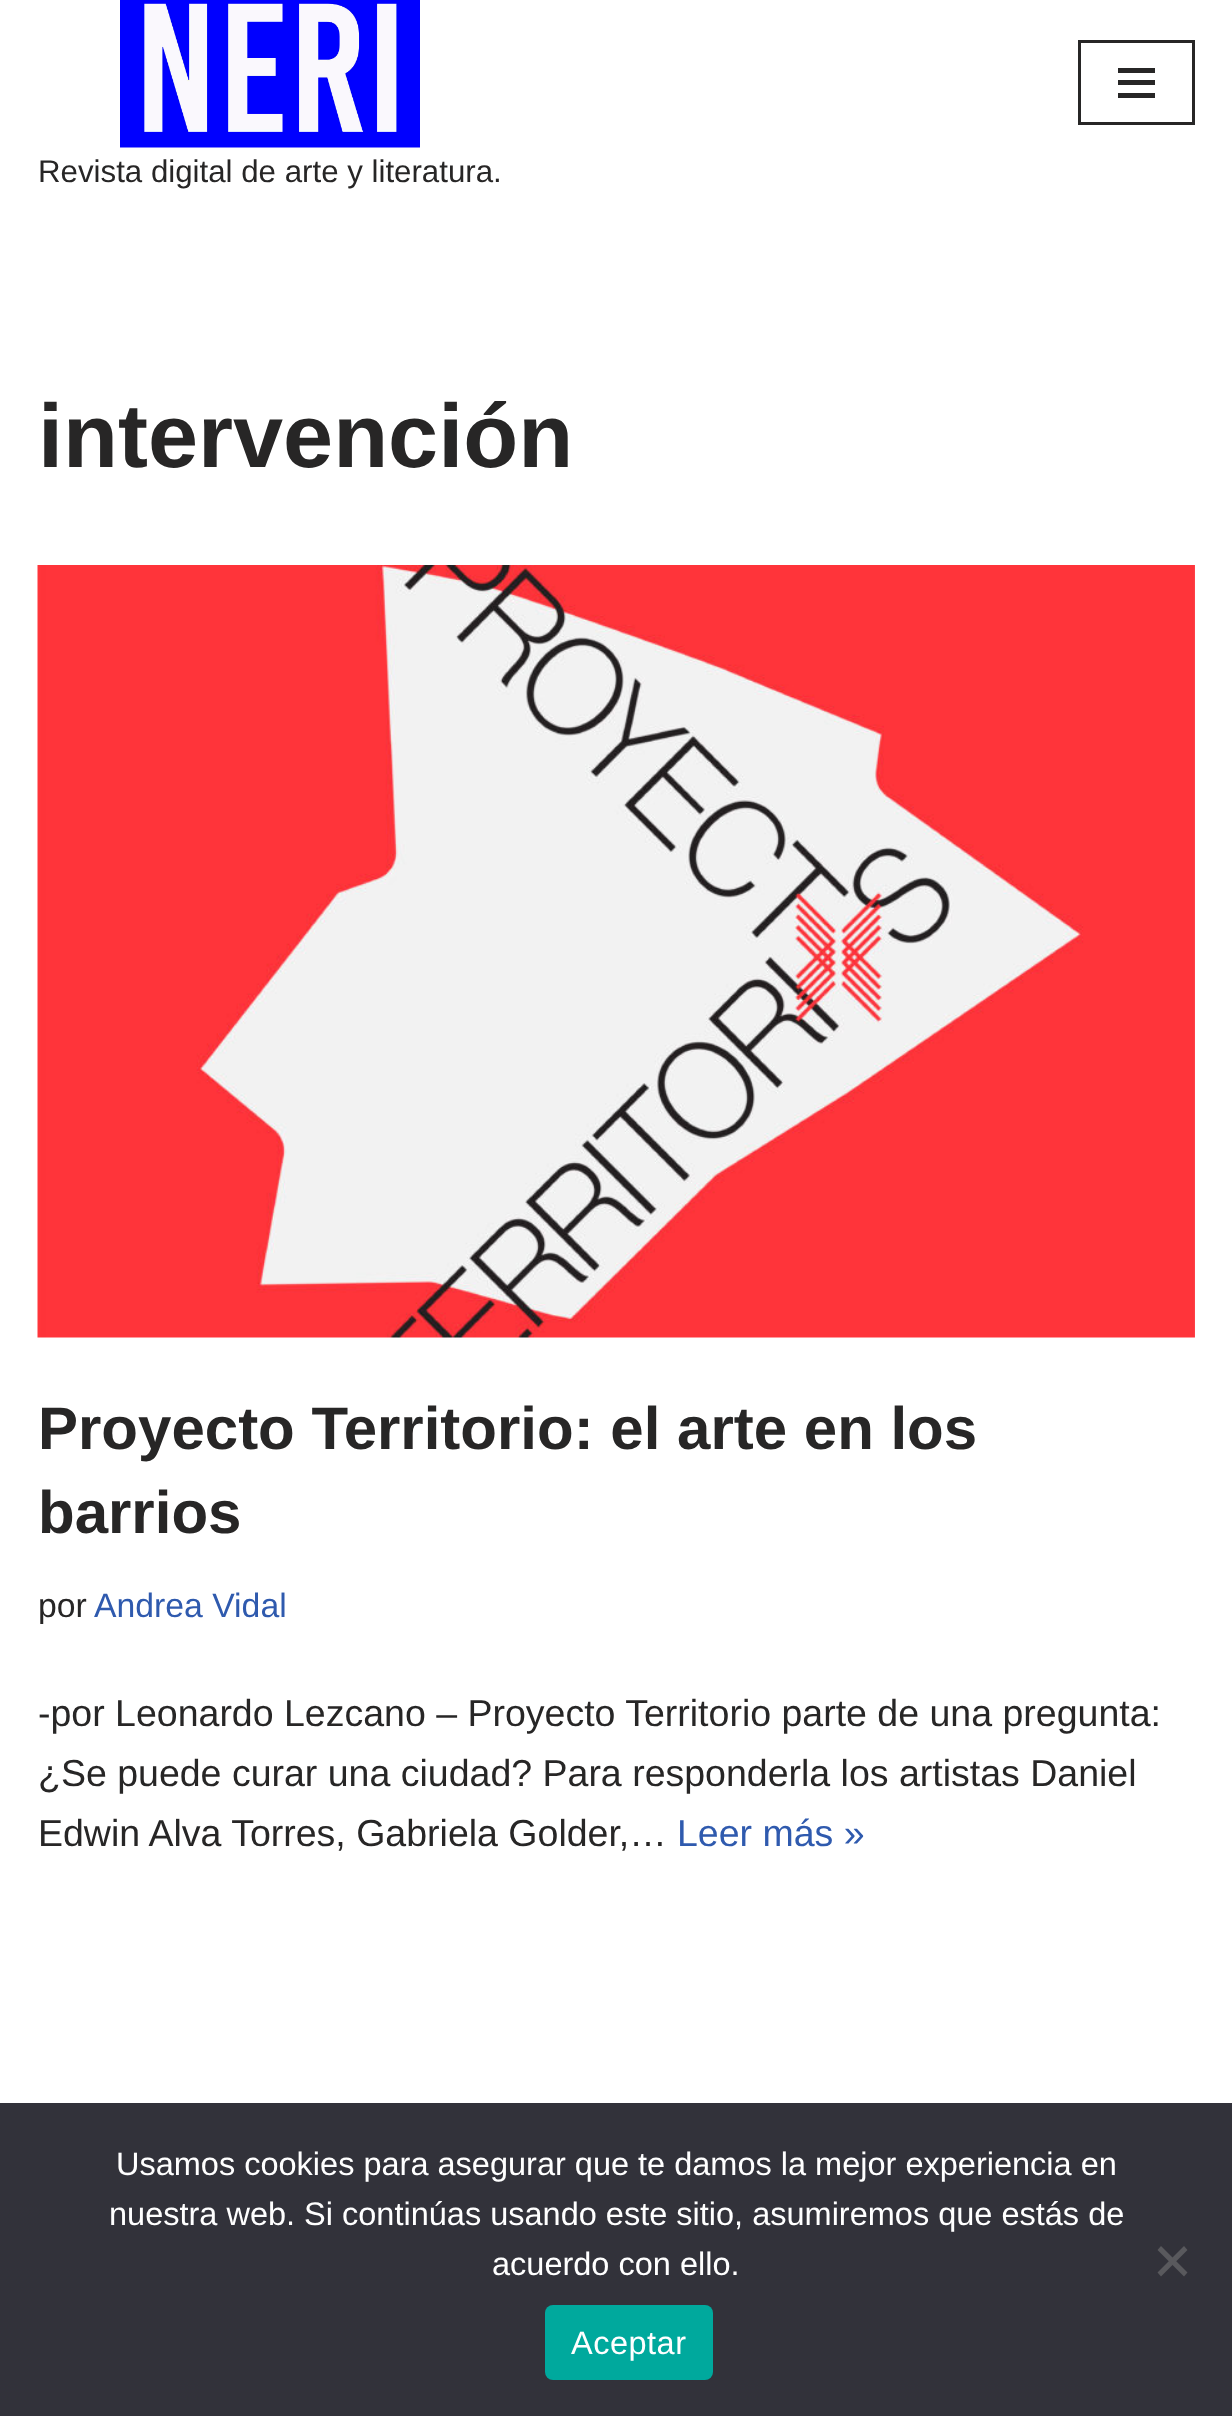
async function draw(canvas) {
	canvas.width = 1232;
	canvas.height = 2416;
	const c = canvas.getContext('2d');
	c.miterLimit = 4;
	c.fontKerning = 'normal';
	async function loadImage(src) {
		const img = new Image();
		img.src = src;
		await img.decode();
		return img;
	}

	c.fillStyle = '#fff';
	c.fillRect(0, 0, 1232, 2416);
	c.strokeStyle = '#272626';
	c.lineWidth = 3;
	c.strokeRect(1079.5, 41.5, 114, 82);
	for (const [x, y, w, h, color] of [
		[1118, 68, 37, 5, '#272626'],
		[1118, 80, 37, 5, '#272626'],
		[1118, 93, 37, 5, '#272626'],
	]) {
		c.fillStyle = color;
		c.fillRect(x, y, w, h);
	}
	c.drawImage(await loadImage('img1.png'), 120, 0, 300, 148);
	c.font = '31.25px Liberation Sans';
	c.fillText('Revista digital de arte y literatura.', 38, 182);
	c.font = 'bold 90px Liberation Sans';
	c.fillText('intervención', 38, 467);
	c.drawImage(await loadImage('img2.png'), 37, 565, 1158, 773);
	c.font = 'bold 60px Liberation Sans';
	c.fillText('Proyecto Territorio: el arte en los', 38, 1449);
	c.fillText('barrios', 38, 1533);
	c.font = '33.75px Liberation Sans';
	c.fillText('por', 38, 1617);
	c.fillStyle = '#2f5aae';
	c.fillText('Andrea Vidal', 94, 1617);
	c.font = '37.5px Liberation Sans';
	c.fillStyle = '#272626';
	for (const [text, x, y] of [
		['-por Leonardo Lezcano – Proyecto Territorio parte de una pregunta:', 38, 1726],
		['¿Se puede curar una ciudad? Para responderla los artistas Daniel', 38, 1786],
		['Edwin Alva Torres, Gabriela Golder,…', 38, 1846],
	]) {
		c.fillText(text, x, y);
	}
	c.fillStyle = '#2f5aae';
	c.fillText('Leer más »', 677, 1846);
	c.fillStyle = '#32323a';
	c.fillRect(0, 2103, 1232, 313);
	c.font = '32.5px Liberation Sans';
	c.fillStyle = '#fff';
	for (const [text, x, y] of [
		['Usamos cookies para asegurar que te damos la mejor experiencia en', 116, 2175],
		['nuestra web. Si continúas usando este sitio, asumiremos que estás de', 109, 2225],
		['acuerdo con ello.', 492, 2275],
	]) {
		c.fillText(text, x, y);
	}
	c.fillStyle = '#59595d';
	c.beginPath();
	c.moveTo(1184, 2246);
	c.lineTo(1187.5, 2250);
	c.lineTo(1161, 2276.5);
	c.lineTo(1157.5, 2272.5);
	c.closePath();
	c.fill();
	c.beginPath();
	c.moveTo(1157.5, 2250);
	c.lineTo(1161, 2246);
	c.lineTo(1187.5, 2272.5);
	c.lineTo(1184, 2276.5);
	c.closePath();
	c.fill();
	c.fillStyle = '#00a99d';
	c.beginPath();
	c.roundRect(545, 2305, 168, 75, 8);
	c.fill();
	c.letterSpacing = '0.5px';
	c.fillStyle = '#fff';
	c.fillText('Aceptar', 571, 2354);
}

draw(document.querySelector('canvas'));
